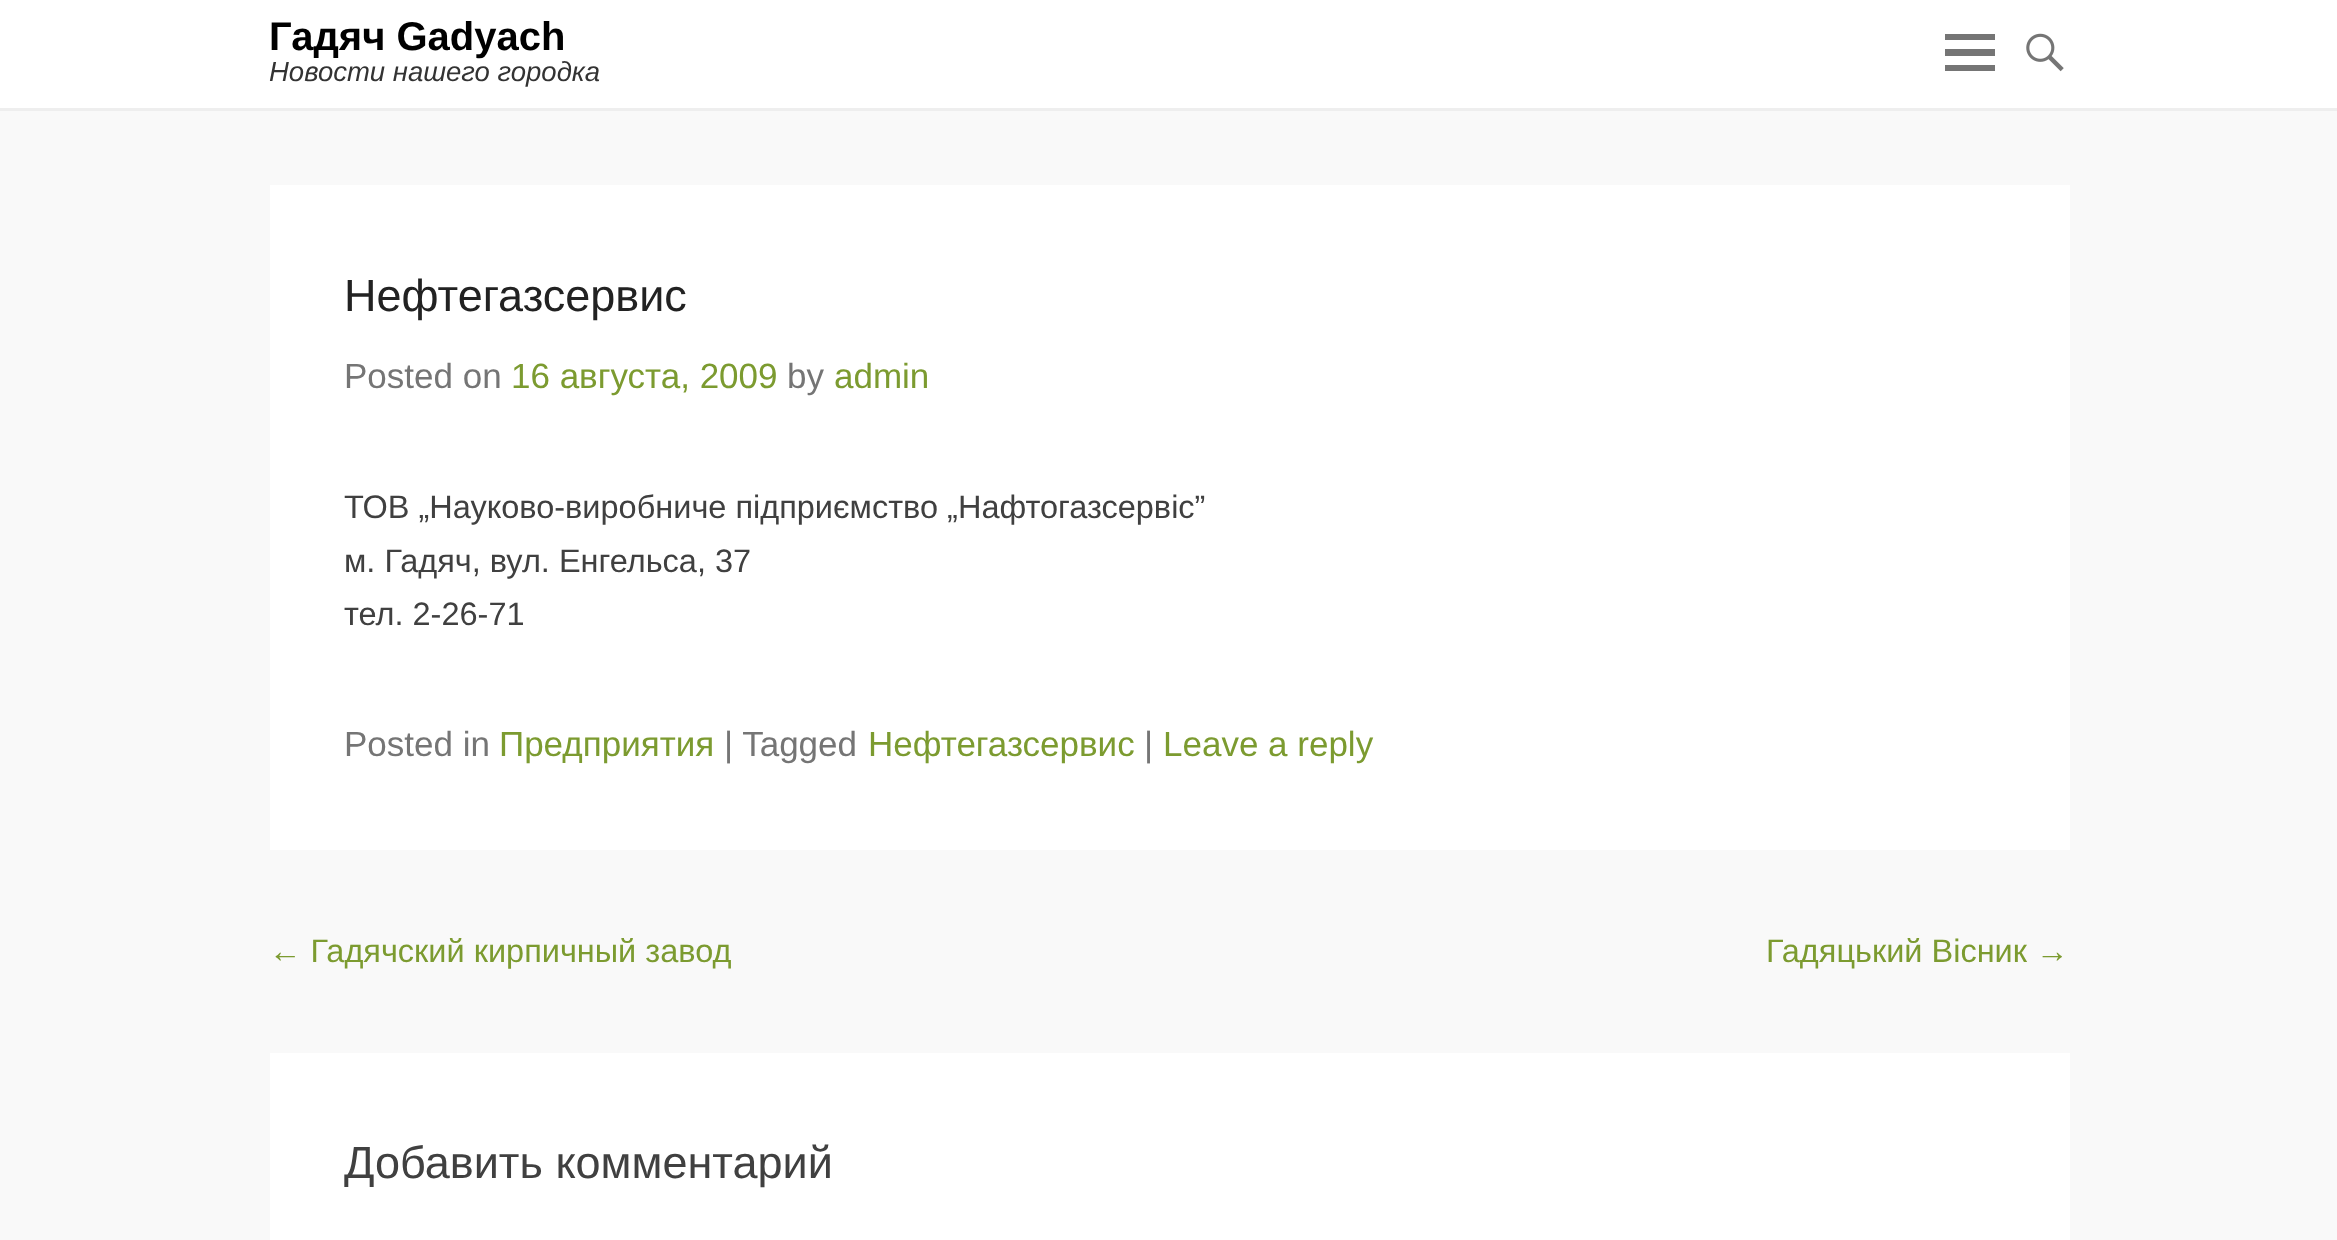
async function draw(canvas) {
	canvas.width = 2337;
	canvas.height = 1240;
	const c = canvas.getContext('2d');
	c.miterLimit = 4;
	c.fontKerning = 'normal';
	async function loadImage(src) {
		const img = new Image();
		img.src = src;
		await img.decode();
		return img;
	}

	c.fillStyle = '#f9f9f9';
	c.fillRect(0, 0, 2337, 1240);
	c.fillStyle = '#fff';
	c.fillRect(0, 0, 2337, 108);
	c.fillStyle = '#eee';
	c.fillRect(0, 108, 2337, 3);
	c.font = 'bold 40px Liberation Sans';
	c.fillStyle = '#000';
	c.fillText('Гадяч Gadyach', 269, 50);
	c.font = 'italic 27.5px Liberation Sans';
	c.fillStyle = '#333';
	c.fillText('Новости нашего городка', 269, 81);
	c.fillStyle = '#757575';
	c.beginPath();
	c.moveTo(1945, 71);
	c.lineTo(1945, 65);
	c.lineTo(1995, 65);
	c.lineTo(1995, 71);
	c.closePath();
	c.moveTo(1945, 34);
	c.lineTo(1995, 34);
	c.lineTo(1995, 40);
	c.lineTo(1945, 40);
	c.closePath();
	c.moveTo(1945, 56);
	c.lineTo(1945, 49);
	c.lineTo(1995, 49);
	c.lineTo(1995, 56);
	c.closePath();
	c.fill();
	c.drawImage(await loadImage('img1.png'), 2026, 33, 38, 39);
	c.fillStyle = '#fff';
	c.fillRect(270, 185, 1800, 665);
	c.font = '45px Liberation Sans';
	c.fillStyle = '#222';
	c.fillText('Нефтегазсервис', 344, 311);
	c.font = '35px Liberation Sans';
	c.fillStyle = '#757575';
	c.fillText('Posted on', 344, 388);
	c.fillStyle = '#7c9b30';
	c.fillText('16 августа, 2009', 511, 388);
	c.fillStyle = '#757575';
	c.fillText('by', 787, 388);
	c.fillStyle = '#7c9b30';
	c.fillText('admin', 834, 388);
	c.font = '32.5px Liberation Sans';
	c.fillStyle = '#404040';
	for (const [text, x, y] of [
		['ТОВ „Науково-виробниче підприємство „Нафтогазсервіс”', 344, 518],
		['м. Гадяч, вул. Енгельса, 37', 344, 572],
		['тел. 2-26-71', 344, 625],
	]) {
		c.fillText(text, x, y);
	}
	c.font = '35px Liberation Sans';
	c.fillStyle = '#757575';
	c.fillText('Posted in', 344, 756);
	c.fillStyle = '#7c9b30';
	c.fillText('Предприятия', 499, 756);
	c.fillStyle = '#757575';
	c.fillText('| Tagged', 724, 756);
	c.fillStyle = '#7c9b30';
	c.fillText('Нефтегазсервис', 868, 756);
	c.fillStyle = '#757575';
	c.fillText('|', 1144, 756);
	c.fillStyle = '#7c9b30';
	c.fillText('Leave a reply', 1163, 756);
	c.font = '32.5px Liberation Sans';
	c.fillText('← Гадячский кирпичный завод', 269, 962);
	c.fillText('Гадяцький Вісник →', 1766, 962);
	c.fillStyle = '#fff';
	c.fillRect(270, 1053, 1800, 187);
	c.font = '45px Liberation Sans';
	c.fillStyle = '#404040';
	c.fillText('Добавить комментарий', 344, 1178);
}

draw(document.querySelector('canvas'));
